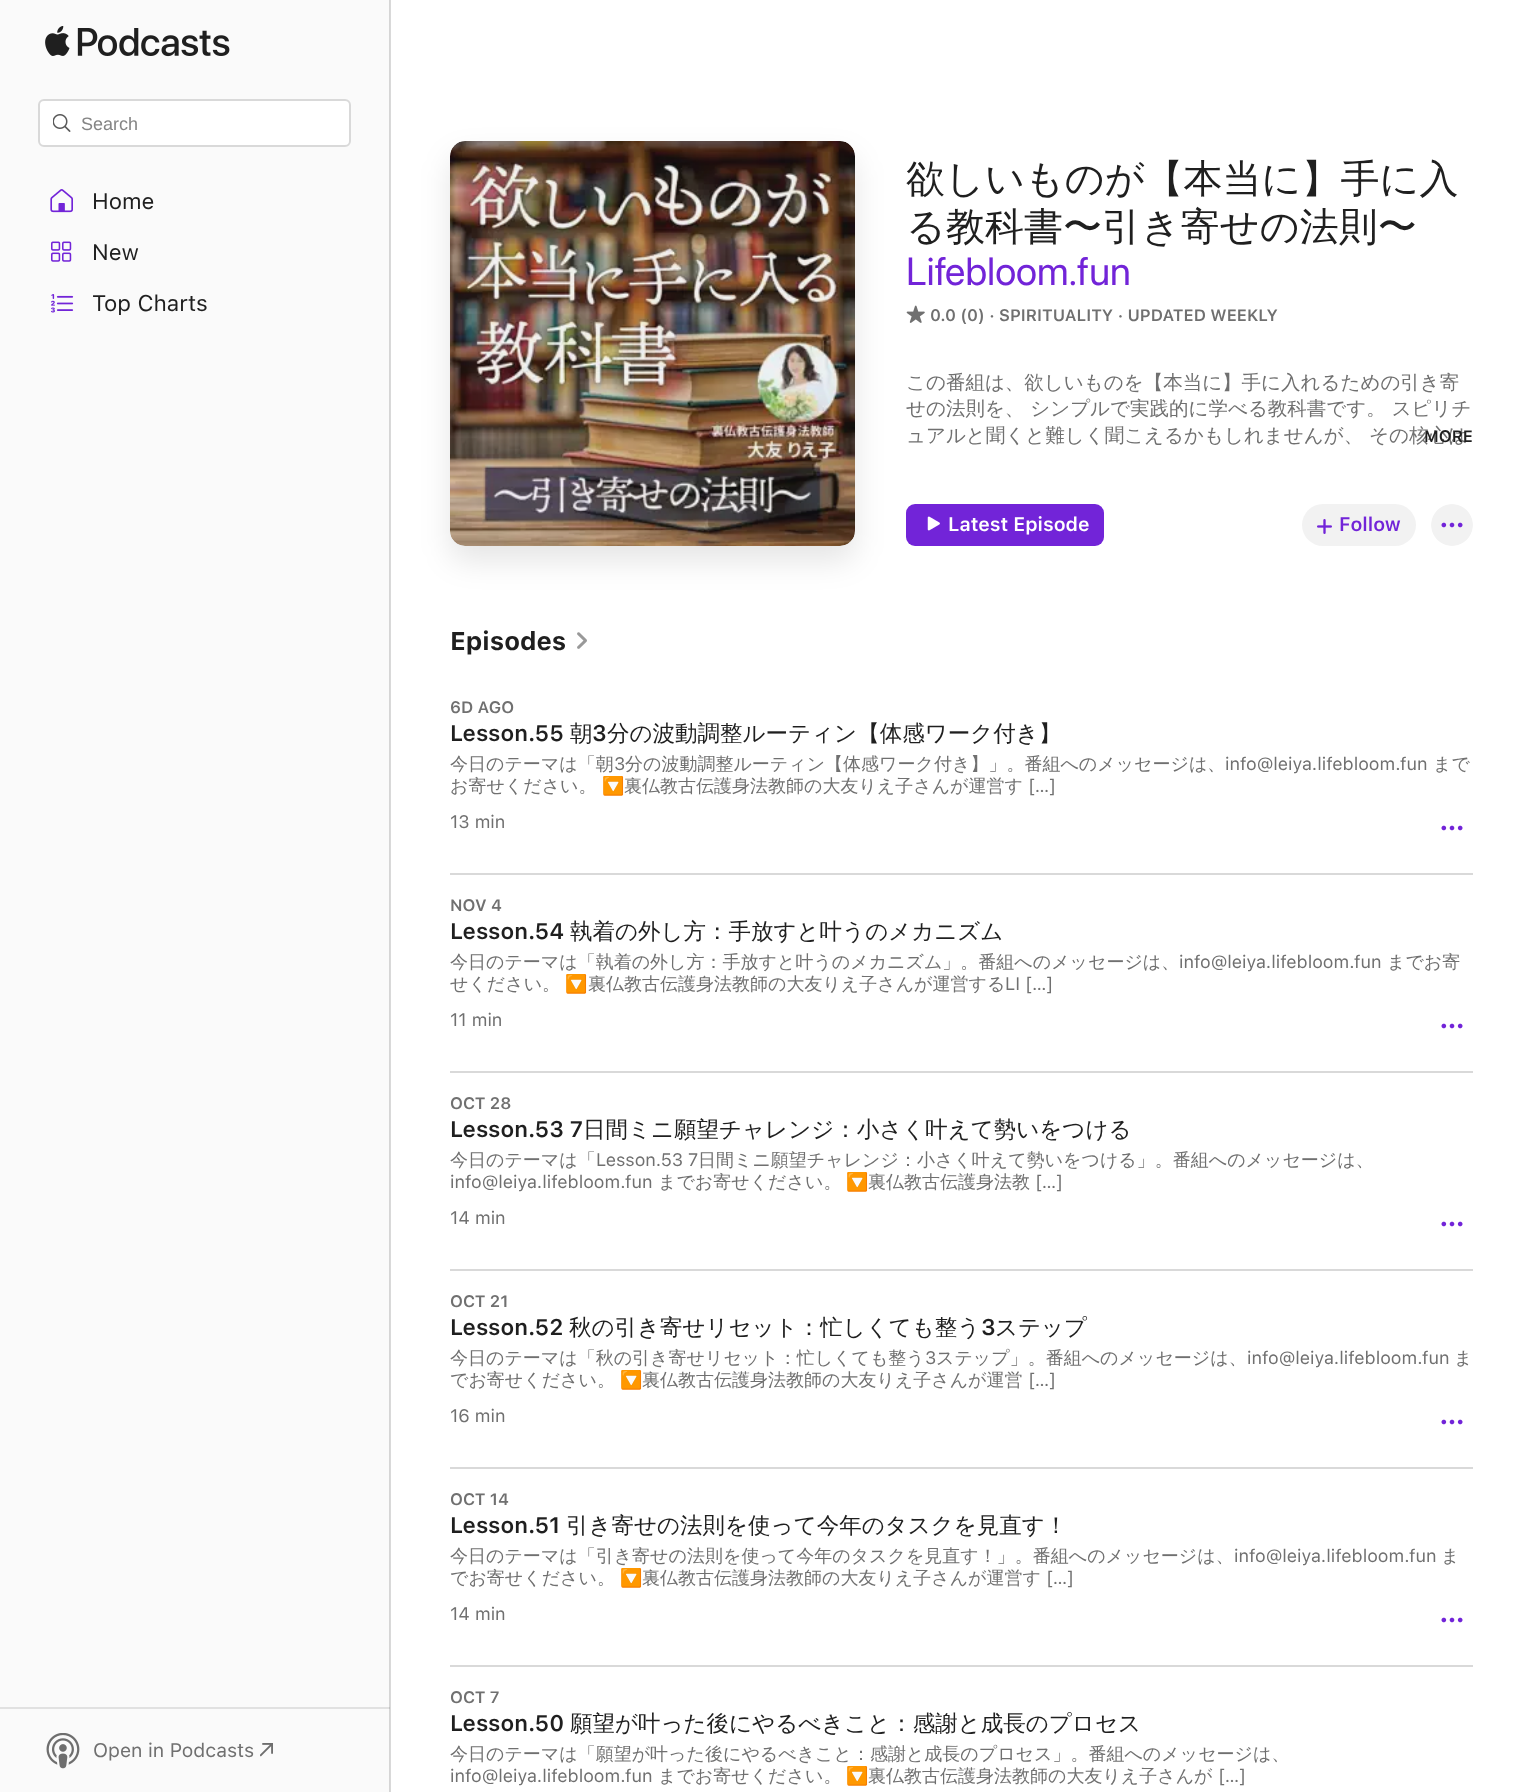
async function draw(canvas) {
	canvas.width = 1532;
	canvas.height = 1792;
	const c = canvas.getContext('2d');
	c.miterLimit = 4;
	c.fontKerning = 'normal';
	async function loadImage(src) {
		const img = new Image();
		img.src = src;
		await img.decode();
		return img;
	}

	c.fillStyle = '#fff';
	c.fillRect(0, 0, 1532, 1792);
	for (const [x, y, w, h, color] of [
		[390, 0, 1, 1792, '#d9d9d9'],
		[0, 0, 389, 1792, '#fafafa'],
		[0, 1707, 390, 2, '#e1e1e1'],
		[389, 0, 1, 1792, '#d5d5d5'],
		[389, 1707, 1, 2, '#c0c0c0'],
	]) {
		c.fillStyle = color;
		c.fillRect(x, y, w, h);
	}
	c.drawImage(await loadImage('img1.png'), 45, 26, 185, 31);
	c.fillStyle = '#fff';
	c.beginPath();
	c.roundRect(39, 100, 311, 46, 5);
	c.fill();
	c.strokeStyle = '#d9d9d9';
	c.lineWidth = 2;
	c.stroke();
	c.drawImage(await loadImage('img2.png'), 53, 114, 18, 18);
	c.font = '18px Liberation Sans';
	c.fillStyle = '#858585';
	c.fillText('Search', 81, 130);
	c.drawImage(await loadImage('img3.png'), 50, 189, 23, 24);
	c.font = '22.5px "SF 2"';
	c.fillStyle = '#1f1f1f';
	c.fillText('Home', 92, 209);
	c.drawImage(await loadImage('img4.png'), 51, 241, 21, 21);
	c.fillText('New', 92, 260);
	c.drawImage(await loadImage('img5.png'), 51, 294, 23, 19);
	c.fillText('Top Charts', 92, 311);
	c.drawImage(await loadImage('img6.png'), 46, 1733, 34, 36);
	c.font = '19.5px "SF 2"';
	c.fillStyle = '#707070';
	c.fillText('Open in Podcasts', 93, 1757);
	c.drawImage(await loadImage('img7.png'), 260, 1743, 13, 14);
	c.fillStyle = '#0000001a';
	c.filter = 'blur(15px)';
	c.beginPath();
	c.roundRect(450, 156, 405, 405, 15);
	c.fill();
	c.filter = 'none';
	c.drawImage(await loadImage('img8.png'), 450, 141, 405, 405);
	c.fillStyle = '#8080801a';
	c.beginPath();
	c.moveTo(465, 141);
	c.lineTo(840, 141);
	c.bezierCurveTo(848, 141, 855, 148, 855, 156);
	c.lineTo(855, 531);
	c.bezierCurveTo(855, 539, 848, 546, 840, 546);
	c.lineTo(465, 546);
	c.bezierCurveTo(457, 546, 450, 539, 450, 531);
	c.lineTo(450, 156);
	c.bezierCurveTo(450, 148, 457, 141, 465, 141);
	c.closePath();
	c.fill();
	c.font = '500 39px WenQuanYi Zen Hei';
	c.fillStyle = '#1f1f1f';
	c.fillText('欲しいものが【本当に】手に入', 906, 192);
	c.fillText('る教科書〜引き寄せの法則〜', 906, 240);
	c.font = '39px SF';
	c.fillStyle = '#7224d8';
	c.fillText('Lifebloom.fun', 906, 285);
	c.drawImage(await loadImage('img9.png'), 906, 305, 19, 18);
	c.font = '600 16.5px SF';
	c.fillStyle = '#707070';
	c.fillText('0.0 (0) · SPIRITUALITY · UPDATED WEEKLY', 930, 321);
	c.font = '500 19.5px WenQuanYi Zen Hei';
	for (const [text, x, y] of [
		['この番組は、欲しいものを【本当に】手に入れるための引き寄', 906, 389],
		['せの法則を、 シンプルで実践的に学べる教科書です。 スピリチ', 906, 415],
		['ュアルと聞くと難しく聞こえるかもしれませんが、 その核心は', 906, 442],
	]) {
		c.fillText(text, x, y);
	}
	c.font = '600 16.5px SF';
	c.fillStyle = '#1f1f1f';
	c.fillText('MORE', 1424, 442);
	c.fillStyle = '#7224d8';
	c.beginPath();
	c.roundRect(906, 504, 198, 42, 9);
	c.fill();
	c.drawImage(await loadImage('img10.png'), 927, 516, 13, 15);
	c.font = '600 19.5px SF';
	c.fillStyle = '#fff';
	c.fillText('Latest Episode', 948, 531);
	c.fillStyle = '#f2f2f2';
	c.beginPath();
	c.roundRect(1302, 504, 114, 42, 21);
	c.fill();
	c.drawImage(await loadImage('img11.png'), 1317, 519, 15, 15);
	c.fillStyle = '#7224d8';
	c.fillText('Follow', 1339, 531);
	c.drawImage(await loadImage('img12.png'), 1431, 504, 42, 42);
	c.font = 'bold 25.5px SF';
	c.fillStyle = '#1f1f1f';
	c.fillText('Episodes', 450, 650);
	c.drawImage(await loadImage('img13.png'), 577, 632, 10, 17);
	c.fillStyle = '#d9d9d9';
	c.fillRect(450, 873, 1023, 2);
	c.font = '600 16.5px SF';
	c.fillStyle = '#707070';
	c.fillText('6D AGO', 450, 713);
	c.font = '600 22.5px SF';
	c.fillStyle = '#1f1f1f';
	c.fillText('Lesson.55', 450, 741);
	c.font = '500 22.5px WenQuanYi Zen Hei';
	c.fillText('朝', 570, 741);
	c.font = '600 22.5px SF';
	c.fillText('3', 592, 741);
	c.font = '500 22.5px WenQuanYi Zen Hei';
	c.fillText('分の波動調整ルーティン【体感ワーク付き】', 607, 741);
	c.font = '500 18px WenQuanYi Zen Hei';
	c.fillStyle = '#707070';
	c.fillText('今日のテーマは「朝', 450, 770);
	c.font = '18px "SF 2"';
	c.fillText('3', 614, 770);
	c.font = '500 18px WenQuanYi Zen Hei';
	c.fillText('分の波動調整ルーティン【体感ワーク付き】」。番組へのメッセージは、', 625, 770);
	c.font = '18px "SF 2"';
	c.fillText('info@leiya.lifebloom.fun', 1225, 770);
	c.font = '500 18px WenQuanYi Zen Hei';
	c.fillText('まで', 1433, 770);
	c.fillText('お寄せください。', 450, 792);
	c.font = '18px Noto Color Emoji';
	c.fillText('🔽', 602, 792);
	c.font = '500 18px WenQuanYi Zen Hei';
	c.fillText('裏仏教古伝護身法教師の大友りえ子さんが運営す', 624, 792);
	c.font = '18px "SF 2"';
	c.fillText('[…]', 1028, 792);
	c.fillText('13 min', 450, 828);
	c.drawImage(await loadImage('img14.png'), 1441, 825, 22, 6);
	c.fillStyle = '#d9d9d9';
	c.fillRect(450, 1071, 1023, 2);
	c.font = '600 16.5px SF';
	c.fillStyle = '#707070';
	c.fillText('NOV 4', 450, 911);
	c.font = '600 22.5px SF';
	c.fillStyle = '#1f1f1f';
	c.fillText('Lesson.54', 450, 939);
	c.font = '500 22.5px WenQuanYi Zen Hei';
	c.fillText('執着の外し方：手放すと叶うのメカニズム', 570, 939);
	c.font = '500 18px WenQuanYi Zen Hei';
	c.fillStyle = '#707070';
	c.fillText('今日のテーマは「執着の外し方：手放すと叶うのメカニズム」。番組へのメッセージは、', 450, 968);
	c.font = '18px "SF 2"';
	c.fillText('info@leiya.lifebloom.fun', 1179, 968);
	c.font = '500 18px WenQuanYi Zen Hei';
	c.fillText('までお寄', 1387, 968);
	c.fillText('せください。', 450, 990);
	c.font = '18px Noto Color Emoji';
	c.fillText('🔽', 565, 990);
	c.font = '500 18px WenQuanYi Zen Hei';
	c.fillText('裏仏教古伝護身法教師の大友りえ子さんが運営する', 588, 990);
	c.font = '18px "SF 2"';
	c.fillText('LI […]', 1005, 990);
	c.fillText('11 min', 450, 1026);
	c.drawImage(await loadImage('img14.png'), 1441, 1023, 22, 6);
	c.fillStyle = '#d9d9d9';
	c.fillRect(450, 1269, 1023, 2);
	c.font = '600 16.5px SF';
	c.fillStyle = '#707070';
	c.fillText('OCT 28', 450, 1109);
	c.font = '600 22.5px SF';
	c.fillStyle = '#1f1f1f';
	c.fillText('Lesson.53 7', 450, 1137);
	c.font = '500 22.5px WenQuanYi Zen Hei';
	c.fillText('日間ミニ願望チャレンジ：小さく叶えて勢いをつける', 583, 1137);
	c.font = '500 18px WenQuanYi Zen Hei';
	c.fillStyle = '#707070';
	c.fillText('今日のテーマは「', 450, 1166);
	c.font = '18px "SF 2"';
	c.fillText('Lesson.53 7', 596, 1166);
	c.font = '500 18px WenQuanYi Zen Hei';
	c.fillText('日間ミニ願望チャレンジ：小さく叶えて勢いをつける」。番組へのメッセージは、', 698, 1166);
	c.font = '18px "SF 2"';
	c.fillText('info@leiya.lifebloom.fun', 450, 1188);
	c.font = '500 18px WenQuanYi Zen Hei';
	c.fillText('までお寄せください。', 658, 1188);
	c.font = '18px Noto Color Emoji';
	c.fillText('🔽', 846, 1188);
	c.font = '500 18px WenQuanYi Zen Hei';
	c.fillText('裏仏教古伝護身法教', 868, 1188);
	c.font = '18px "SF 2"';
	c.fillText('[…]', 1035, 1188);
	c.fillText('14 min', 450, 1224);
	c.drawImage(await loadImage('img14.png'), 1441, 1221, 22, 6);
	c.fillStyle = '#d9d9d9';
	c.fillRect(450, 1467, 1023, 2);
	c.font = '600 16.5px SF';
	c.fillStyle = '#707070';
	c.fillText('OCT 21', 450, 1307);
	c.font = '600 22.5px SF';
	c.fillStyle = '#1f1f1f';
	c.fillText('Lesson.52', 450, 1335);
	c.font = '500 22.5px WenQuanYi Zen Hei';
	c.fillText('秋の引き寄せリセット：忙しくても整う', 569, 1335);
	c.font = '600 22.5px SF';
	c.fillText('3', 981, 1335);
	c.font = '500 22.5px WenQuanYi Zen Hei';
	c.fillText('ステップ', 995, 1335);
	c.font = '500 18px WenQuanYi Zen Hei';
	c.fillStyle = '#707070';
	c.fillText('今日のテーマは「秋の引き寄せリセット：忙しくても整う', 450, 1364);
	c.font = '18px "SF 2"';
	c.fillText('3', 925, 1364);
	c.font = '500 18px WenQuanYi Zen Hei';
	c.fillText('ステップ」。番組へのメッセージは、', 936, 1364);
	c.font = '18px "SF 2"';
	c.fillText('info@leiya.lifebloom.fun', 1247, 1364);
	c.font = '500 18px WenQuanYi Zen Hei';
	c.fillText('ま', 1454, 1364);
	c.fillText('でお寄せください。', 450, 1386);
	c.font = '18px Noto Color Emoji';
	c.fillText('🔽', 620, 1386);
	c.font = '500 18px WenQuanYi Zen Hei';
	c.fillText('裏仏教古伝護身法教師の大友りえ子さんが運営', 642, 1386);
	c.font = '18px "SF 2"';
	c.fillText('[…]', 1028, 1386);
	c.fillText('16 min', 450, 1422);
	c.drawImage(await loadImage('img14.png'), 1441, 1419, 22, 6);
	c.fillStyle = '#d9d9d9';
	c.fillRect(450, 1665, 1023, 2);
	c.font = '600 16.5px SF';
	c.fillStyle = '#707070';
	c.fillText('OCT 14', 450, 1505);
	c.font = '600 22.5px SF';
	c.fillStyle = '#1f1f1f';
	c.fillText('Lesson.51', 450, 1533);
	c.font = '500 22.5px WenQuanYi Zen Hei';
	c.fillText('引き寄せの法則を使って今年のタスクを見直す！', 566, 1533);
	c.font = '500 18px WenQuanYi Zen Hei';
	c.fillStyle = '#707070';
	c.fillText('今日のテーマは「引き寄せの法則を使って今年のタスクを見直す！」。番組へのメッセージは、', 450, 1562);
	c.font = '18px "SF 2"';
	c.fillText('info@leiya.lifebloom.fun', 1234, 1562);
	c.font = '500 18px WenQuanYi Zen Hei';
	c.fillText('ま', 1441, 1562);
	c.fillText('でお寄せください。', 450, 1584);
	c.font = '18px Noto Color Emoji';
	c.fillText('🔽', 620, 1584);
	c.font = '500 18px WenQuanYi Zen Hei';
	c.fillText('裏仏教古伝護身法教師の大友りえ子さんが運営す', 642, 1584);
	c.font = '18px "SF 2"';
	c.fillText('[…]', 1046, 1584);
	c.fillText('14 min', 450, 1620);
	c.drawImage(await loadImage('img14.png'), 1441, 1617, 22, 6);
	c.font = '600 16.5px SF';
	c.fillText('OCT 7', 450, 1703);
	c.font = '600 22.5px SF';
	c.fillStyle = '#1f1f1f';
	c.fillText('Lesson.50', 450, 1731);
	c.font = '500 22.5px WenQuanYi Zen Hei';
	c.fillText('願望が叶った後にやるべきこと：感謝と成長のプロセス', 570, 1731);
	c.font = '500 18px WenQuanYi Zen Hei';
	c.fillStyle = '#707070';
	c.fillText('今日のテーマは「願望が叶った後にやるべきこと：感謝と成長のプロセス」。番組へのメッセージは、', 450, 1760);
	c.font = '18px "SF 2"';
	c.fillText('info@leiya.lifebloom.fun', 450, 1782);
	c.font = '500 18px WenQuanYi Zen Hei';
	c.fillText('までお寄せください。', 658, 1782);
	c.font = '18px Noto Color Emoji';
	c.fillText('🔽', 846, 1782);
	c.font = '500 18px WenQuanYi Zen Hei';
	c.fillText('裏仏教古伝護身法教師の大友りえ子さんが', 868, 1782);
	c.font = '18px "SF 2"';
	c.fillText('[…]', 1218, 1782);
}

draw(document.querySelector('canvas'));
